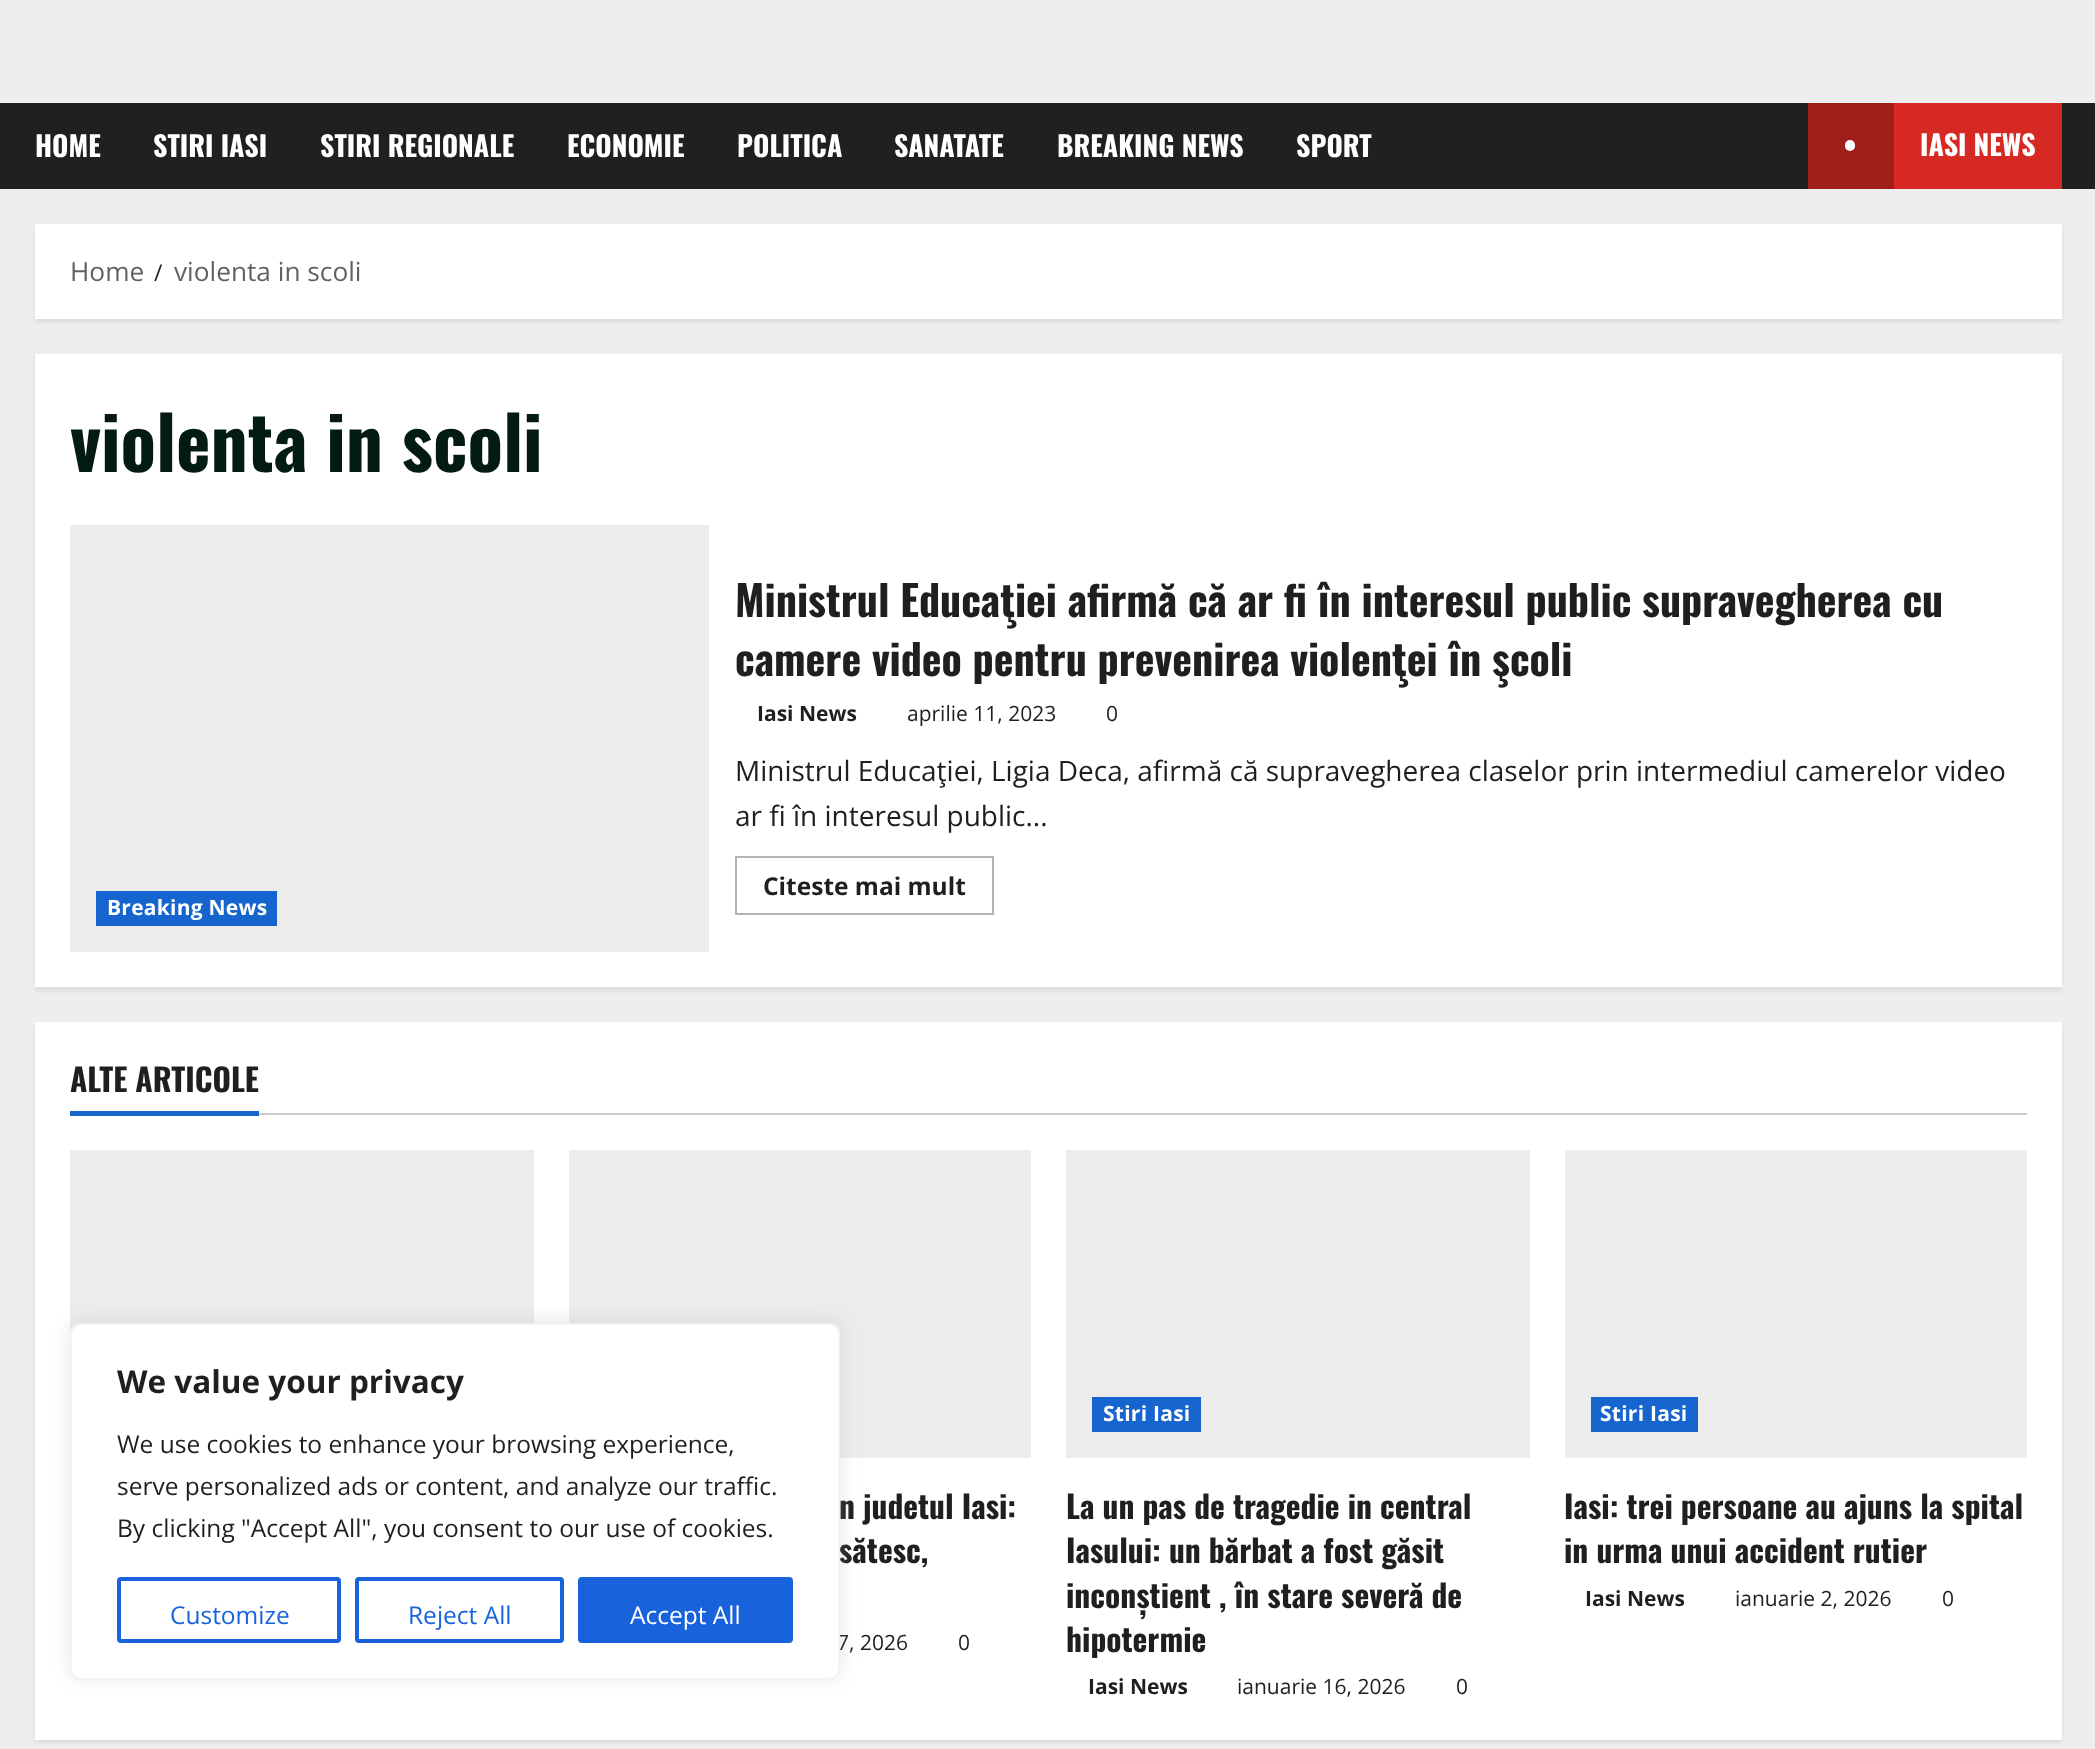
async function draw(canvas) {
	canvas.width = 2095;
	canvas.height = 1749;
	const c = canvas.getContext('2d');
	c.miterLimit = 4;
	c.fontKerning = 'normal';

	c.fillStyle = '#eee';
	c.fillRect(0, 0, 2095, 1749);
	c.fillStyle = '#202020';
	c.fillRect(0, 103, 2095, 86);
	c.font = 'bold 28px Oswald';
	c.fillStyle = '#fff';
	for (const [text, x, y] of [
		['HOME', 35, 157],
		['STIRI IASI', 153, 157],
		['STIRI REGIONALE', 320, 157],
		['ECONOMIE', 567, 157],
		['POLITICA', 737, 157],
		['SANATATE', 894, 157],
		['BREAKING NEWS', 1057, 157],
		['SPORT', 1296, 157],
	]) {
		c.fillText(text, x, y);
	}
	c.fillStyle = '#d72924';
	c.fillRect(1894, 103, 168, 86);
	c.fillStyle = '#a11f1b';
	c.fillRect(1808, 103, 86, 86);
	c.fillStyle = '#fff';
	c.beginPath();
	c.roundRect(1845, 140, 10, 11, 5);
	c.fill();
	c.fillText('IASI NEWS', 1920, 156);
	c.fillStyle = '#00000014';
	c.filter = 'blur(2px)';
	c.beginPath();
	c.rect(35, 228, 2027, 94);
	c.fill();
	c.filter = 'none';
	c.fillStyle = '#fff';
	c.fillRect(35, 224, 2027, 95);
	c.font = '26.25px Open Sans';
	c.fillStyle = '#626262';
	c.fillText('Home', 70, 281);
	c.font = '23px Open Sans';
	c.fillStyle = '#1f1f1f';
	c.fillText('/', 154, 281);
	c.font = '26.25px Open Sans';
	c.fillStyle = '#626262';
	c.fillText('violenta in scoli', 174, 281);
	c.fillStyle = '#00000014';
	c.filter = 'blur(2px)';
	c.beginPath();
	c.rect(35, 357, 2027, 634);
	c.fill();
	c.filter = 'none';
	c.fillStyle = '#fff';
	c.fillRect(35, 354, 2027, 633);
	c.font = 'bold 73.5px Oswald';
	c.fillStyle = '#031b11';
	c.fillText('violenta in scoli', 70, 472);
	c.font = 'bold 42px Oswald';
	c.fillStyle = '#1f1f1f';
	c.fillText('Ministrul Educaţiei afirmă că ar fi în interesul public supravegherea cu', 735, 617);
	c.fillText('camere video pentru prevenirea violenţei în şcoli', 735, 676);
	c.font = 'bold 21px Open Sans';
	c.fillText('Iasi News', 757, 721);
	c.font = '21px Open Sans';
	c.fillText('aprilie 11, 2023', 907, 721);
	c.fillText('0', 1106, 721);
	c.font = '28px Open Sans';
	c.fillText('Ministrul Educaţiei, Ligia Deca, afirmă că supravegherea claselor prin intermediul camerelor video', 735, 781);
	c.fillText('ar fi în interesul public...', 735, 826);
	c.strokeStyle = '#b3b3b3';
	c.lineWidth = 2;
	c.strokeRect(736, 857, 257, 57);
	c.font = 'bold 24.5px Open Sans';
	c.fillText('Citeste mai mult', 763, 895);
	c.fillStyle = '#ececec';
	c.fillRect(70, 525, 639, 427);
	c.fillStyle = '#1665cf';
	c.fillRect(96, 891, 181, 35);
	c.letterSpacing = '0.25px';
	c.font = 'bold 21px Open Sans';
	c.fillStyle = '#fff';
	c.fillText('Breaking News', 107, 915);
	c.fillStyle = '#00000014';
	c.filter = 'blur(2px)';
	c.beginPath();
	c.rect(35, 1026, 2027, 717);
	c.fill();
	c.filter = 'none';
	c.fillStyle = '#fff';
	c.fillRect(35, 1022, 2027, 718);
	c.fillStyle = '#ccc';
	c.fillRect(259, 1113, 1768, 2);
	c.letterSpacing = '0px';
	c.font = 'bold 31.5px Oswald';
	c.fillStyle = '#1f1f1f';
	c.fillText('ALTE ARTICOLE', 70, 1092);
	for (const [x, y, w, h, color] of [
		[70, 1111, 189, 5, '#1665cf'],
		[70, 1150, 464, 184, '#ececec'],
		[569, 1150, 462, 308, '#ececec'],
	]) {
		c.fillStyle = color;
		c.fillRect(x, y, w, h);
	}
	c.fillStyle = '#1f1f1f';
	c.fillText('n judetul Iasi:', 839, 1519);
	c.fillText('sătesc,', 839, 1563);
	c.font = '21px Open Sans';
	c.fillText('7, 2026', 837, 1650);
	c.fillText('0', 958, 1650);
	c.fillStyle = '#ececec';
	c.fillRect(1066, 1150, 464, 308);
	c.fillStyle = '#1665cf';
	c.fillRect(1092, 1397, 109, 35);
	c.letterSpacing = '0.25px';
	c.font = 'bold 21px Open Sans';
	c.fillStyle = '#fff';
	c.fillText('Stiri Iasi', 1103, 1421);
	c.letterSpacing = '0px';
	c.font = 'bold 31.5px Oswald';
	c.fillStyle = '#1f1f1f';
	for (const [text, x, y] of [
		['La un pas de tragedie in central', 1066, 1519],
		['Iasului: un bărbat a fost găsit', 1066, 1563],
		['inconștient , în stare severă de', 1066, 1608],
		['hipotermie', 1066, 1652],
	]) {
		c.fillText(text, x, y);
	}
	c.font = 'bold 21px Open Sans';
	c.fillText('Iasi News', 1088, 1694);
	c.font = '21px Open Sans';
	c.fillText('ianuarie 16, 2026', 1237, 1694);
	c.fillText('0', 1456, 1694);
	c.fillStyle = '#ececec';
	c.fillRect(1565, 1150, 462, 308);
	c.fillStyle = '#1665cf';
	c.fillRect(1591, 1397, 107, 35);
	c.letterSpacing = '0.25px';
	c.font = 'bold 21px Open Sans';
	c.fillStyle = '#fff';
	c.fillText('Stiri Iasi', 1600, 1421);
	c.letterSpacing = '0px';
	c.font = 'bold 31.5px Oswald';
	c.fillStyle = '#1f1f1f';
	c.fillText('Iasi: trei persoane au ajuns la spital', 1564, 1519);
	c.fillText('in urma unui accident rutier', 1564, 1563);
	c.font = 'bold 21px Open Sans';
	c.fillText('Iasi News', 1585, 1606);
	c.font = '21px Open Sans';
	c.fillText('ianuarie 2, 2026', 1735, 1606);
	c.fillText('0', 1942, 1606);
	c.fillStyle = '#acabab4d';
	c.filter = 'blur(9px)';
	c.beginPath();
	c.roundRect(70, 1321, 770, 357, 11);
	c.fill();
	c.filter = 'none';
	c.fillStyle = '#fff';
	c.beginPath();
	c.roundRect(71, 1324, 768, 355, 10);
	c.fill();
	c.strokeStyle = '#f4f4f4';
	c.stroke();
	c.font = 'bold 31.5px Open Sans';
	c.fillStyle = '#1f1f1f';
	c.fillText('We value your privacy', 117, 1393);
	c.font = '24.5px Open Sans';
	for (const [text, x, y] of [
		['We use cookies to enhance your browsing experience,', 117, 1453],
		['serve personalized ads or content, and analyze our traffic.', 117, 1495],
		['By clicking "Accept All", you consent to our use of cookies.', 117, 1537],
	]) {
		c.fillText(text, x, y);
	}
	c.beginPath();
	c.roundRect(119, 1579, 220, 62, 2);
	c.strokeStyle = '#1863dc';
	c.lineWidth = 4;
	c.stroke();
	c.fillStyle = '#1863dc';
	c.fillText('Customize', 170, 1624);
	c.beginPath();
	c.roundRect(357, 1579, 205, 62, 2);
	c.stroke();
	c.fillText('Reject All', 408, 1624);
	c.beginPath();
	c.roundRect(580, 1579, 211, 62, 2);
	c.fill();
	c.stroke();
	c.fillStyle = '#fff';
	c.fillText('Accept All', 630, 1624);
}

draw(document.querySelector('canvas'));
